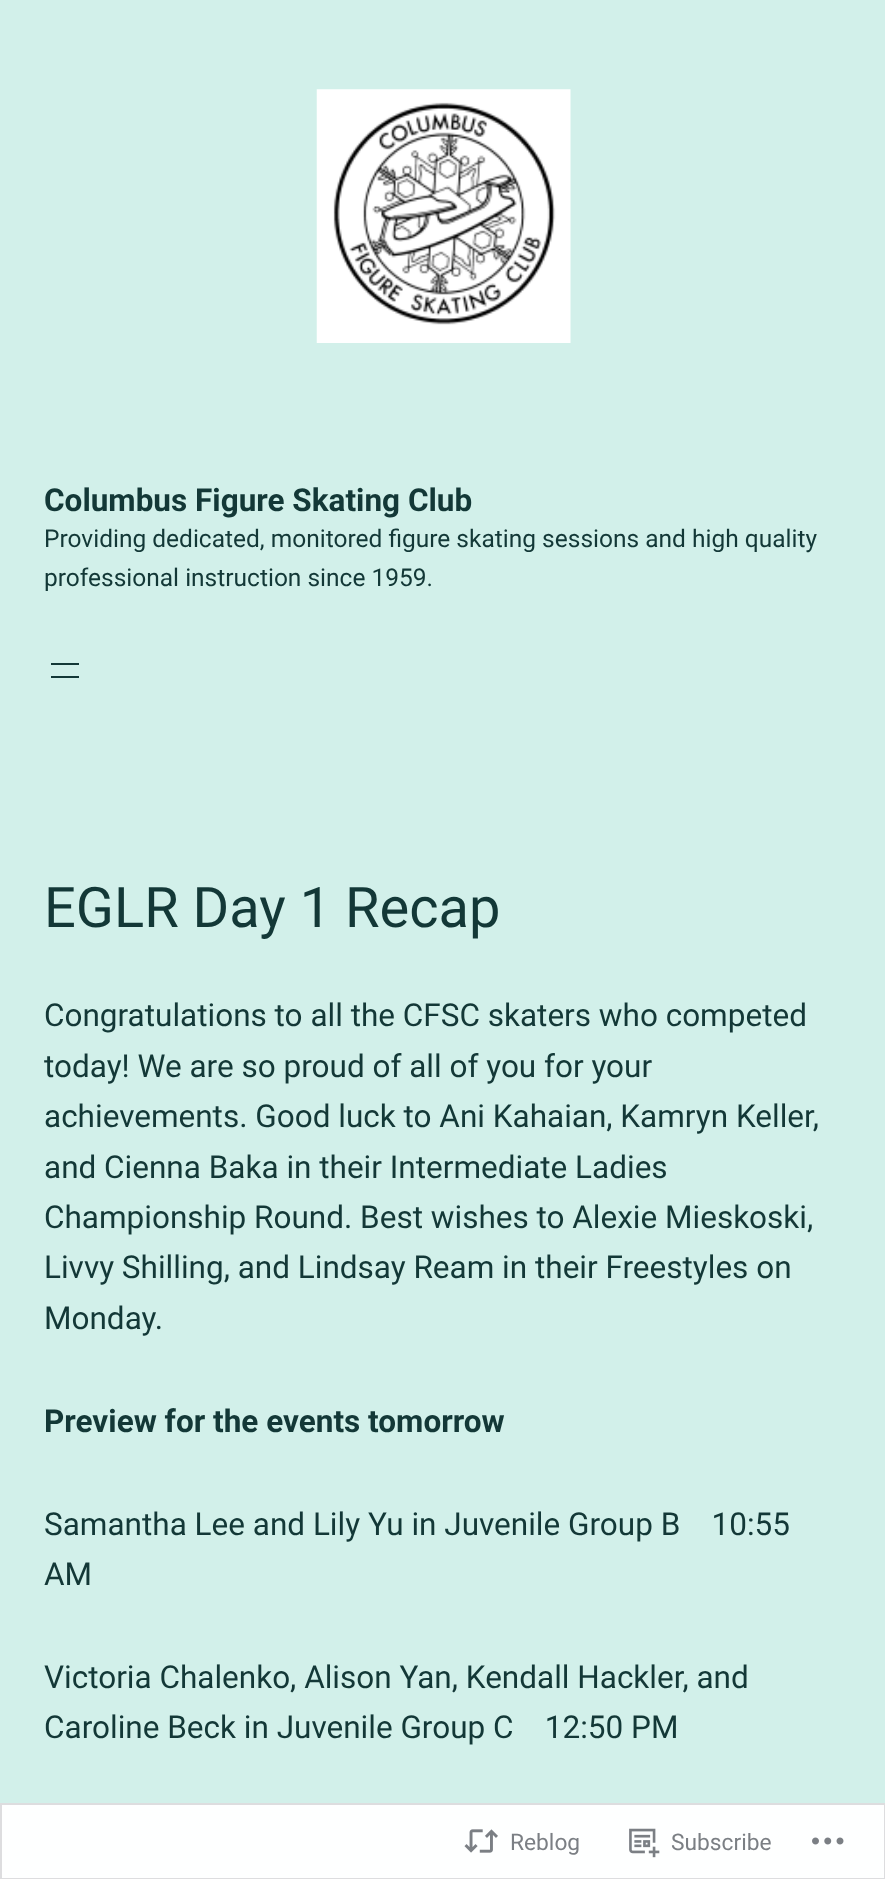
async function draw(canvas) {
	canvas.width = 885;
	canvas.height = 1879;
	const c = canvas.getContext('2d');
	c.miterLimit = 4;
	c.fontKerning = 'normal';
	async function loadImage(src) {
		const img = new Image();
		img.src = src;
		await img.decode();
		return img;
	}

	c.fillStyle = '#d2f0ea';
	c.fillRect(0, 0, 885, 1879);
	c.fillStyle = '#feffff';
	c.fillRect(0, 1803, 885, 76);
	c.drawImage(await loadImage('img1.png'), 316, 89, 255, 254);
	c.font = 'bold 31.5px Roboto';
	c.fillStyle = '#133837';
	c.fillText('Columbus Figure Skating Club', 44, 511);
	c.font = '24.5px Roboto';
	c.fillText('Providing dedicated, monitored figure skating sessions and high quality', 44, 547);
	c.fillText('professional instruction since 1959.', 44, 586);
	c.fillRect(51, 663, 28, 2);
	c.fillRect(51, 676, 28, 2);
	c.font = '56px Roboto';
	c.fillText('EGLR Day 1 Recap', 44, 927);
	c.font = '31.5px Roboto';
	for (const [text, x, y] of [
		['Congratulations to all the CFSC skaters who competed', 44, 1026],
		['today! We are so proud of all of you for your', 44, 1077],
		['achievements. Good luck to Ani Kahaian, Kamryn Keller,', 44, 1127],
		['and Cienna Baka in their Intermediate Ladies', 44, 1178],
		['Championship Round. Best wishes to Alexie Mieskoski,', 44, 1228],
		['Livvy Shilling, and Lindsay Ream in their Freestyles on', 44, 1278],
		['Monday.', 44, 1329],
	]) {
		c.fillText(text, x, y);
	}
	c.font = 'bold 31.5px Roboto';
	c.fillText('Preview for the events tomorrow', 44, 1432);
	c.font = '31.5px Roboto';
	for (const [text, x, y] of [
		['Samantha Lee and Lily Yu in Juvenile Group B    10:55', 44, 1535],
		['AM', 44, 1585],
		['Victoria Chalenko, Alison Yan, Kendall Hackler, and', 44, 1688],
		['Caroline Beck in Juvenile Group C    12:50 PM', 44, 1738],
	]) {
		c.fillText(text, x, y);
	}
	c.strokeStyle = '#dcdcdefa';
	c.lineWidth = 2;
	c.strokeRect(1, 1804, 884, 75);
	c.drawImage(await loadImage('img2.png'), 464, 1829, 34, 24);
	c.font = '22.75px Roboto';
	c.fillStyle = '#7b7f84';
	c.fillText('Reblog', 510, 1850);
	c.drawImage(await loadImage('img3.png'), 629, 1828, 31, 30);
	c.fillText('Subscribe', 671, 1850);
	c.drawImage(await loadImage('img4.png'), 812, 1837, 32, 8);
}

draw(document.querySelector('canvas'));
